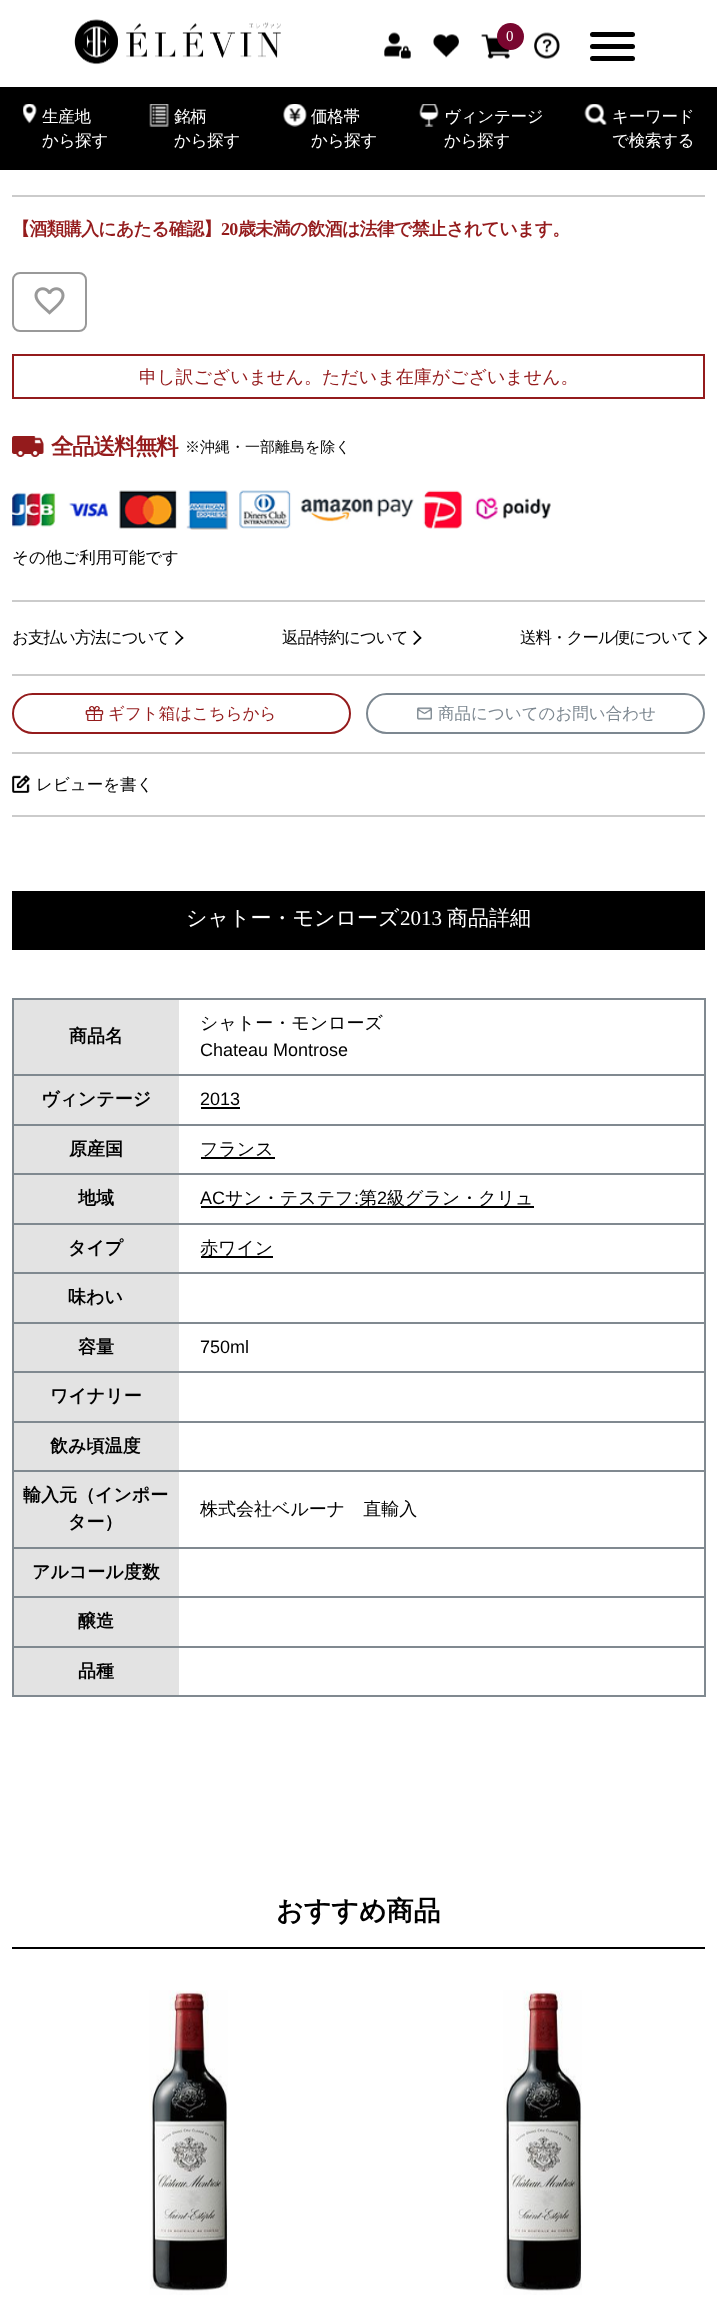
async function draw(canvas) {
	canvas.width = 717;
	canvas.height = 2314;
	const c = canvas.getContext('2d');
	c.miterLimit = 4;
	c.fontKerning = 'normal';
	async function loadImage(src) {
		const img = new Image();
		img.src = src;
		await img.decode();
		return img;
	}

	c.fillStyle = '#fff';
	c.fillRect(0, 0, 717, 2314);
	c.drawImage(await loadImage('img1.png'), 74, 19, 207, 46);
	c.drawImage(await loadImage('img2.png'), 384, 32, 27, 27);
	c.drawImage(await loadImage('img3.png'), 433, 34, 26, 24);
	c.drawImage(await loadImage('img4.png'), 481, 34, 29, 25);
	c.fillStyle = '#79062f';
	c.beginPath();
	c.arc(510.5, 36.5, 13.5, 0, 2 * Math.PI);
	c.fill();
	c.font = '15px Liberation Serif';
	c.fillStyle = '#fff';
	c.fillText('0', 506, 41);
	c.drawImage(await loadImage('img5.png'), 534, 32, 26, 27);
	c.fillStyle = '#000';
	c.beginPath();
	c.roundRect(590, 32, 45, 5, 2.5);
	c.fill();
	c.beginPath();
	c.roundRect(590, 44, 45, 5, 2.5);
	c.fill();
	c.beginPath();
	c.roundRect(590, 56, 45, 5, 2.5);
	c.fill();
	c.fillRect(0, 87, 717, 83);
	c.drawImage(await loadImage('img6.png'), 23, 104, 14, 20);
	c.letterSpacing = '-0.25px';
	c.font = '500 16.5px WenQuanYi Zen Hei';
	c.fillStyle = '#fff';
	c.fillText('生産地', 42, 122);
	c.fillText('から探す', 42, 146);
	c.drawImage(await loadImage('img7.png'), 149, 104, 20, 23);
	c.fillText('銘柄', 174, 122);
	c.fillText('から探す', 174, 146);
	c.drawImage(await loadImage('img8.png'), 283, 104, 24, 23);
	c.fillText('価格帯', 311, 122);
	c.fillText('から探す', 311, 146);
	c.drawImage(await loadImage('img9.png'), 419, 104, 20, 23);
	c.fillText('ヴィンテージ', 444, 122);
	c.fillText('から探す', 444, 146);
	c.drawImage(await loadImage('img10.png'), 584, 104, 23, 21);
	c.fillText('キーワード', 612, 122);
	c.fillText('で検索する', 612, 146);
	c.fillStyle = '#cbcbcb';
	c.fillRect(12, 195, 693, 2);
	c.letterSpacing = '-0.75px';
	c.font = 'bold 18px WenQuanYi Zen Hei';
	c.fillStyle = '#941b1c';
	c.fillText('【酒類購入にあたる確認】', 12, 235);
	c.font = 'bold 18px Liberation Serif';
	c.fillText('20', 221, 235);
	c.font = 'bold 18px WenQuanYi Zen Hei';
	c.fillText('歳未満の飲酒は法律で禁止されています。', 238, 235);
	c.beginPath();
	c.roundRect(13, 273, 73, 58, 7);
	c.strokeStyle = '#999';
	c.lineWidth = 2;
	c.stroke();
	c.drawImage(await loadImage('img11.png'), 34, 287, 31, 28);
	c.strokeStyle = '#941b1c';
	c.strokeRect(13, 355, 691, 43);
	c.letterSpacing = '0px';
	c.font = '500 18px WenQuanYi Zen Hei';
	c.fillText('申し訳ございません。ただいま在庫がございません。', 139, 383);
	c.drawImage(await loadImage('img12.png'), 12, 436, 32, 21);
	c.letterSpacing = '-1.5px';
	c.font = 'bold 22.5px WenQuanYi Zen Hei';
	c.fillText('全品送料無料', 51, 454);
	c.letterSpacing = '0px';
	c.font = '500 15px WenQuanYi Zen Hei';
	c.fillStyle = '#000';
	c.fillText('※沖縄・一部離島を除く', 185, 452);
	c.drawImage(await loadImage('img13.png'), 12, 490, 539, 40);
	c.font = '500 16.5px WenQuanYi Zen Hei';
	c.fillText('その他ご利用可能です', 12, 563);
	c.fillStyle = '#cbcbcb';
	c.fillRect(12, 600, 693, 2);
	c.fillRect(12, 674, 693, 2);
	c.letterSpacing = '-1px';
	c.fillStyle = '#000';
	c.fillText('お支払い方法について', 12, 643);
	c.beginPath();
	c.moveTo(176, 630.5);
	c.lineTo(183.5, 638);
	c.lineTo(182.5, 639);
	c.lineTo(175, 631.5);
	c.closePath();
	c.fill();
	c.beginPath();
	c.moveTo(182.5, 636.5);
	c.lineTo(183.5, 638);
	c.lineTo(176, 645);
	c.lineTo(175, 644);
	c.closePath();
	c.fill();
	c.fillText('返品特約について', 282, 643);
	c.beginPath();
	c.moveTo(414.5, 630.5);
	c.lineTo(421.5, 638);
	c.lineTo(420.5, 639);
	c.lineTo(413, 631.5);
	c.closePath();
	c.fill();
	c.beginPath();
	c.moveTo(420.5, 636.5);
	c.lineTo(421.5, 638);
	c.lineTo(414.5, 645);
	c.lineTo(413, 644);
	c.closePath();
	c.fill();
	c.fillText('送料・クール便について', 520, 643);
	c.beginPath();
	c.moveTo(699.5, 630.5);
	c.lineTo(707, 638);
	c.lineTo(706, 639);
	c.lineTo(698.5, 631.5);
	c.closePath();
	c.fill();
	c.beginPath();
	c.moveTo(706, 636.5);
	c.lineTo(707, 638);
	c.lineTo(699.5, 645);
	c.lineTo(698.5, 644);
	c.closePath();
	c.fill();
	c.fillStyle = '#cbcbcb';
	c.fillRect(12, 752, 693, 2);
	c.beginPath();
	c.roundRect(13, 694, 337, 39, 19.5);
	c.stroke();
	c.drawImage(await loadImage('img14.png'), 85, 706, 19, 15);
	c.letterSpacing = '0px';
	c.fillStyle = '#941b1c';
	c.fillText('ギフト箱はこちらから', 108, 719);
	c.beginPath();
	c.roundRect(367, 694, 337, 39, 19.5);
	c.strokeStyle = '#7c8790';
	c.stroke();
	c.drawImage(await loadImage('img15.png'), 417, 707, 15, 13);
	c.fillStyle = '#7c8790';
	c.fillText('商品についてのお問い合わせ', 438, 719);
	c.fillStyle = '#cbcbcb';
	c.fillRect(12, 815, 693, 2);
	c.drawImage(await loadImage('img16.png'), 12, 775, 18, 18);
	c.fillStyle = '#000';
	c.fillText('レビューを書く', 36, 790);
	c.fillRect(12, 891, 693, 59);
	c.font = '500 21px WenQuanYi Zen Hei';
	c.fillStyle = '#fff';
	c.fillText('シャトー・モンローズ', 186, 925);
	c.font = '21px Liberation Serif';
	c.fillText('2013', 400, 925);
	c.font = '500 21px WenQuanYi Zen Hei';
	c.fillText('商品詳細', 447, 925);
	for (const [x, y, w, h, color] of [
		[704, 998, 2, 699, '#808990'],
		[12, 998, 2, 699, '#808990'],
		[14, 1000, 165, 74, '#e3e3e3'],
	]) {
		c.fillStyle = color;
		c.fillRect(x, y, w, h);
	}
	c.font = 'bold 18px WenQuanYi Zen Hei';
	c.fillStyle = '#000';
	c.fillText('商品名', 69, 1042);
	c.fillStyle = '#808990';
	c.fillRect(12, 998, 693, 2);
	c.font = '500 18px WenQuanYi Zen Hei';
	c.fillStyle = '#000';
	c.fillText('シャトー・モンローズ', 200, 1029);
	c.font = '18px Liberation Sans';
	c.fillText('Chateau Montrose', 200, 1056);
	c.fillStyle = '#e3e3e3';
	c.fillRect(14, 1076, 165, 48);
	c.font = 'bold 18px WenQuanYi Zen Hei';
	c.fillStyle = '#000';
	c.fillText('ヴィンテージ', 41, 1105);
	c.fillStyle = '#808990';
	c.fillRect(12, 1074, 693, 2);
	c.font = '18px Liberation Sans';
	c.fillStyle = '#000';
	c.fillText('2013', 200, 1105);
	c.fillRect(201, 1107, 39, 2);
	c.fillStyle = '#e3e3e3';
	c.fillRect(14, 1126, 165, 47);
	c.font = 'bold 18px WenQuanYi Zen Hei';
	c.fillStyle = '#000';
	c.fillText('原産国', 69, 1155);
	c.fillStyle = '#808990';
	c.fillRect(12, 1124, 693, 2);
	c.font = '500 18px WenQuanYi Zen Hei';
	c.fillStyle = '#000';
	c.fillText('フランス', 200, 1155);
	c.fillRect(201, 1157, 74, 2);
	c.fillStyle = '#e3e3e3';
	c.fillRect(14, 1175, 165, 48);
	c.font = 'bold 18px WenQuanYi Zen Hei';
	c.fillStyle = '#000';
	c.fillText('地域', 78, 1204);
	c.fillStyle = '#808990';
	c.fillRect(12, 1173, 693, 2);
	c.font = '18px Liberation Sans';
	c.fillStyle = '#000';
	c.fillText('AC', 200, 1204);
	c.fillRect(201, 1206, 333, 2);
	c.font = '500 18px WenQuanYi Zen Hei';
	c.fillText('サン・テステフ', 225, 1204);
	c.font = '18px Liberation Sans';
	c.fillText(':', 354, 1204);
	c.font = '500 18px WenQuanYi Zen Hei';
	c.fillText('第', 359, 1204);
	c.font = '18px Liberation Sans';
	c.fillText('2', 377, 1204);
	c.font = '500 18px WenQuanYi Zen Hei';
	c.fillText('級グラン・クリュ', 387, 1204);
	c.fillStyle = '#e3e3e3';
	c.fillRect(14, 1225, 165, 47);
	c.font = 'bold 18px WenQuanYi Zen Hei';
	c.fillStyle = '#000';
	c.fillText('タイプ', 68, 1254);
	c.fillStyle = '#808990';
	c.fillRect(12, 1223, 693, 2);
	c.fillStyle = '#000';
	c.fillRect(201, 1256, 72, 2);
	c.font = '500 18px WenQuanYi Zen Hei';
	c.fillText('赤ワイン', 200, 1254);
	c.fillStyle = '#808990';
	c.fillRect(12, 1272, 693, 2);
	c.fillStyle = '#e3e3e3';
	c.fillRect(14, 1274, 165, 48);
	c.font = 'bold 18px WenQuanYi Zen Hei';
	c.fillStyle = '#000';
	c.fillText('味わい', 68, 1303);
	c.fillStyle = '#e3e3e3';
	c.fillRect(14, 1324, 165, 47);
	c.fillStyle = '#000';
	c.fillText('容量', 78, 1353);
	c.fillStyle = '#808990';
	c.fillRect(12, 1322, 693, 2);
	c.font = '18px Liberation Sans';
	c.fillStyle = '#000';
	c.fillText('750ml', 200, 1353);
	c.fillStyle = '#808990';
	c.fillRect(12, 1371, 693, 2);
	c.fillStyle = '#e3e3e3';
	c.fillRect(14, 1373, 165, 48);
	c.font = 'bold 18px WenQuanYi Zen Hei';
	c.fillStyle = '#000';
	c.fillText('ワイナリー', 50, 1402);
	c.fillStyle = '#808990';
	c.fillRect(12, 1421, 693, 2);
	c.fillStyle = '#e3e3e3';
	c.fillRect(14, 1423, 165, 47);
	c.fillStyle = '#000';
	c.fillText('飲み頃温度', 50, 1452);
	c.fillStyle = '#e3e3e3';
	c.fillRect(14, 1472, 165, 75);
	c.fillStyle = '#000';
	c.fillText('輸入元（インポー', 23, 1501);
	c.fillText('ター）', 68, 1528);
	c.fillStyle = '#808990';
	c.fillRect(12, 1470, 693, 2);
	c.font = '500 18px WenQuanYi Zen Hei';
	c.fillStyle = '#000';
	c.fillText('株式会社ベルーナ　直輸入', 200, 1515);
	c.fillStyle = '#808990';
	c.fillRect(12, 1547, 693, 2);
	c.fillStyle = '#e3e3e3';
	c.fillRect(14, 1549, 165, 47);
	c.font = 'bold 18px WenQuanYi Zen Hei';
	c.fillStyle = '#000';
	c.fillText('アルコール度数', 32, 1578);
	c.fillStyle = '#808990';
	c.fillRect(12, 1596, 693, 2);
	c.fillStyle = '#e3e3e3';
	c.fillRect(14, 1598, 165, 48);
	c.fillStyle = '#000';
	c.fillText('醸造', 78, 1627);
	for (const [x, y, w, h, color] of [
		[12, 1646, 693, 2, '#808990'],
		[12, 1695, 693, 2, '#808990'],
		[14, 1648, 165, 47, '#e3e3e3'],
	]) {
		c.fillStyle = color;
		c.fillRect(x, y, w, h);
	}
	c.fillStyle = '#000';
	c.fillText('品種', 78, 1677);
	c.fillRect(12, 1947, 693, 2);
	c.font = 'bold 27px WenQuanYi Zen Hei';
	c.fillText('おすすめ商品', 276, 1920);
	c.drawImage(await loadImage('img17.png'), 149, 1990, 79, 305);
	c.drawImage(await loadImage('img17.png'), 503, 1990, 79, 305);
}

draw(document.querySelector('canvas'));
